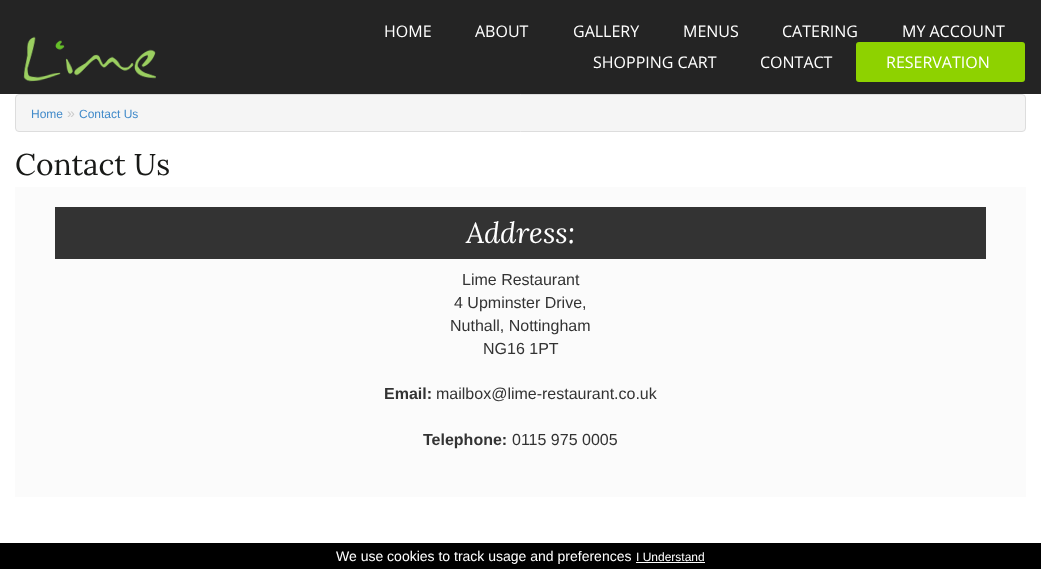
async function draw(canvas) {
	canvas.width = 1041;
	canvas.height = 569;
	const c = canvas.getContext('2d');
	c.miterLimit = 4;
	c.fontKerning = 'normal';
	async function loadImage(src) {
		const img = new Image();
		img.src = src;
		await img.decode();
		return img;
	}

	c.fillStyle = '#fff';
	c.fillRect(0, 0, 1041, 569);
	c.fillStyle = '#242424';
	c.fillRect(0, 0, 1041, 94);
	c.drawImage(await loadImage('img1.png'), 23, 36, 133, 46);
	c.font = '16px Open Sans';
	c.fillStyle = '#fff';
	for (const [text, x, y] of [
		['HOME', 384, 37],
		['ABOUT', 475, 37],
		['GALLERY', 573, 37],
		['MENUS', 683, 37],
		['CATERING', 782, 37],
		['MY ACCOUNT', 902, 37],
		['SHOPPING CART', 593, 68],
		['CONTACT', 760, 68],
	]) {
		c.fillText(text, x, y);
	}
	c.fillStyle = '#8ed200';
	c.beginPath();
	c.roundRect(856, 42, 169, 40, 3);
	c.fill();
	c.fillStyle = '#fff';
	c.fillText('RESERVATION', 886, 68);
	c.fillStyle = '#f5f5f5';
	c.beginPath();
	c.roundRect(15.5, 94.5, 1010, 37, 3.5);
	c.fill();
	c.strokeStyle = '#ddd';
	c.stroke();
	c.font = '12px Liberation Sans';
	c.fillStyle = '#428bca';
	c.fillText('Home', 31, 118);
	c.font = '14px Liberation Sans';
	c.fillStyle = '#ccc';
	c.fillText('»', 67, 118);
	c.font = '12px Liberation Sans';
	c.fillStyle = '#428bca';
	c.fillText('Contact Us', 79, 118);
	c.font = '30px Lora';
	c.fillStyle = '#181917';
	c.fillText('Contact Us', 15, 175);
	c.fillStyle = '#fbfbfb';
	c.fillRect(15, 187, 1011, 310);
	c.fillStyle = '#333';
	c.fillRect(55, 207, 931, 52);
	c.font = 'italic 29px Lora';
	c.fillStyle = '#fff';
	c.fillText('Address:', 466, 243);
	c.font = '16px Liberation Sans';
	c.fillStyle = '#333';
	for (const [text, x, y] of [
		['Lime Restaurant', 462, 285],
		['4 Upminster Drive,', 454, 308],
		['Nuthall, Nottingham', 450, 331],
		['NG16 1PT', 483, 354],
	]) {
		c.fillText(text, x, y);
	}
	c.font = 'bold 16px Liberation Sans';
	c.fillText('Email:', 384, 399);
	c.font = '16px Liberation Sans';
	c.fillText('mailbox@lime-restaurant.co.uk', 436, 399);
	c.font = 'bold 16px Liberation Sans';
	c.fillText('Telephone:', 423, 445);
	c.font = '16px Liberation Sans';
	c.fillText('0115 975 0005', 512, 445);
	c.fillStyle = '#000';
	c.fillRect(0, 543, 1041, 26);
	c.font = '14px Liberation Sans';
	c.fillStyle = '#fff';
	c.fillText('We use cookies to track usage and preferences', 336, 561);
	c.font = '12px Liberation Sans';
	c.fillText('I Understand', 636, 561);
	c.fillRect(636, 562, 69, 1);
}

draw(document.querySelector('canvas'));
